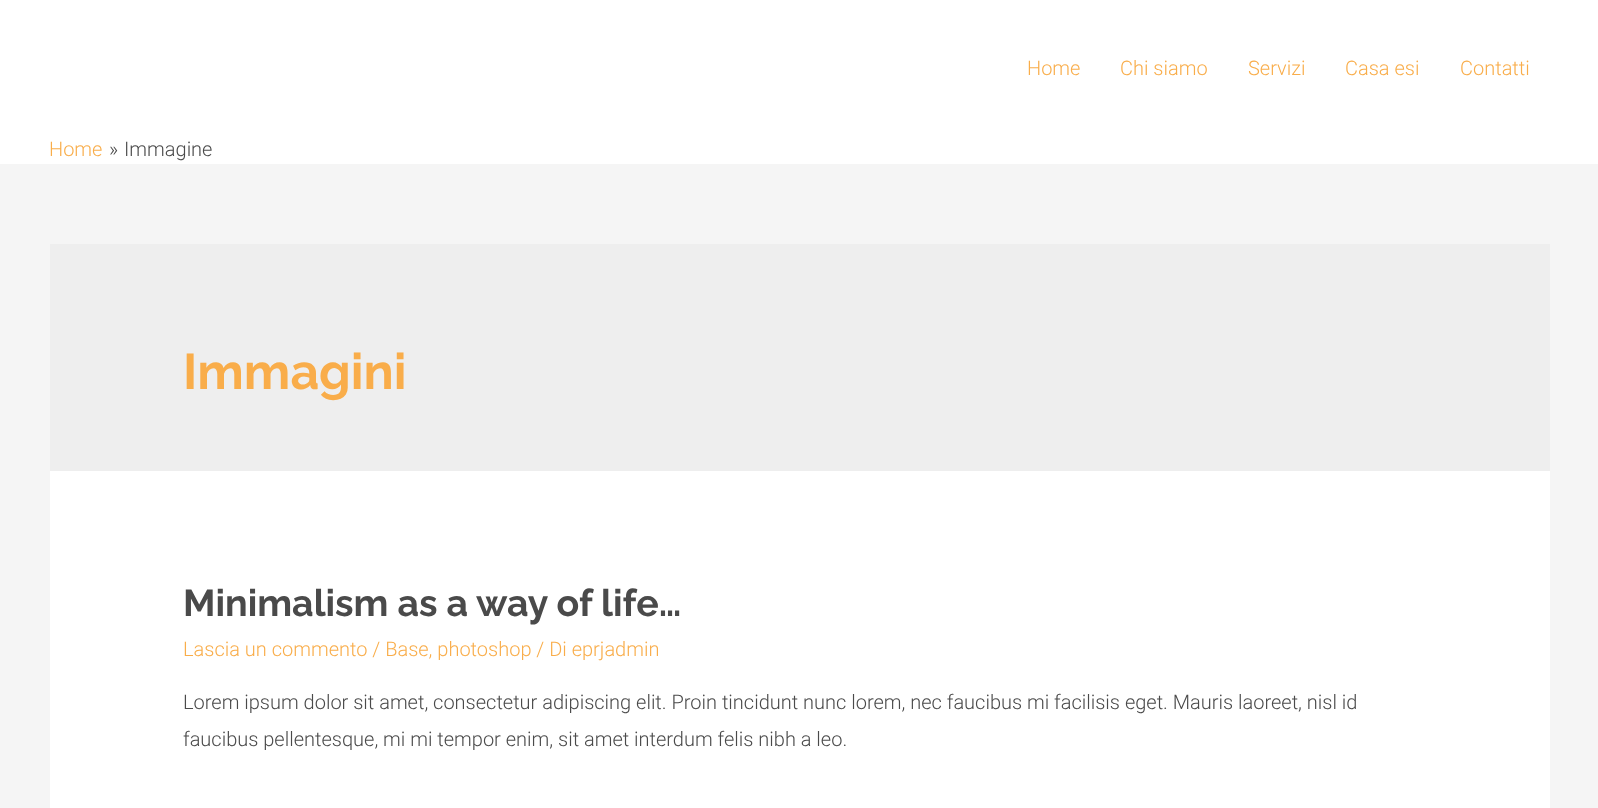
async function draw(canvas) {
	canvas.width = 1598;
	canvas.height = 808;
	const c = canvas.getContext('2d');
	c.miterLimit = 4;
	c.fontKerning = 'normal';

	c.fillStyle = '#f5f5f5';
	c.fillRect(0, 0, 1598, 808);
	c.fillStyle = '#fff';
	c.fillRect(0, 0, 1598, 164);
	c.font = '300 20px Roboto';
	c.fillStyle = '#f9ad4a';
	for (const [text, x, y] of [
		['Home', 1027, 75],
		['Chi siamo', 1120, 75],
		['Servizi', 1248, 75],
		['Casa esi', 1345, 75],
		['Contatti', 1460, 75],
		['Home', 49, 156],
	]) {
		c.fillText(text, x, y);
	}
	c.fillStyle = '#4a4a4a';
	c.fillText('»', 109, 156);
	c.fillText('Immagine', 124, 156);
	c.fillStyle = '#eee';
	c.fillRect(50, 244, 1500, 227);
	c.font = '100 50px Raleway';
	c.fillStyle = '#f9ad4a';
	c.fillText('Immagini', 183, 389);
	c.fillStyle = '#fff';
	c.fillRect(50, 471, 1500, 337);
	c.font = '100 37.5px Raleway';
	c.fillStyle = '#4a4a4a';
	c.fillText('Minimalism as a way of life…', 183, 616);
	c.font = '300 20px Roboto';
	c.fillStyle = '#f9ad4a';
	c.fillText('Lascia un commento / Base, photoshop / Di eprjadmin', 183, 656);
	c.fillStyle = '#4a4a4a';
	c.fillText('Lorem ipsum dolor sit amet, consectetur adipiscing elit. Proin tincidunt nunc lorem, nec faucibus mi facilisis eget. Mauris laoreet, nisl id', 183, 709);
	c.fillText('faucibus pellentesque, mi mi tempor enim, sit amet interdum felis nibh a leo.', 183, 746);
}

draw(document.querySelector('canvas'));
